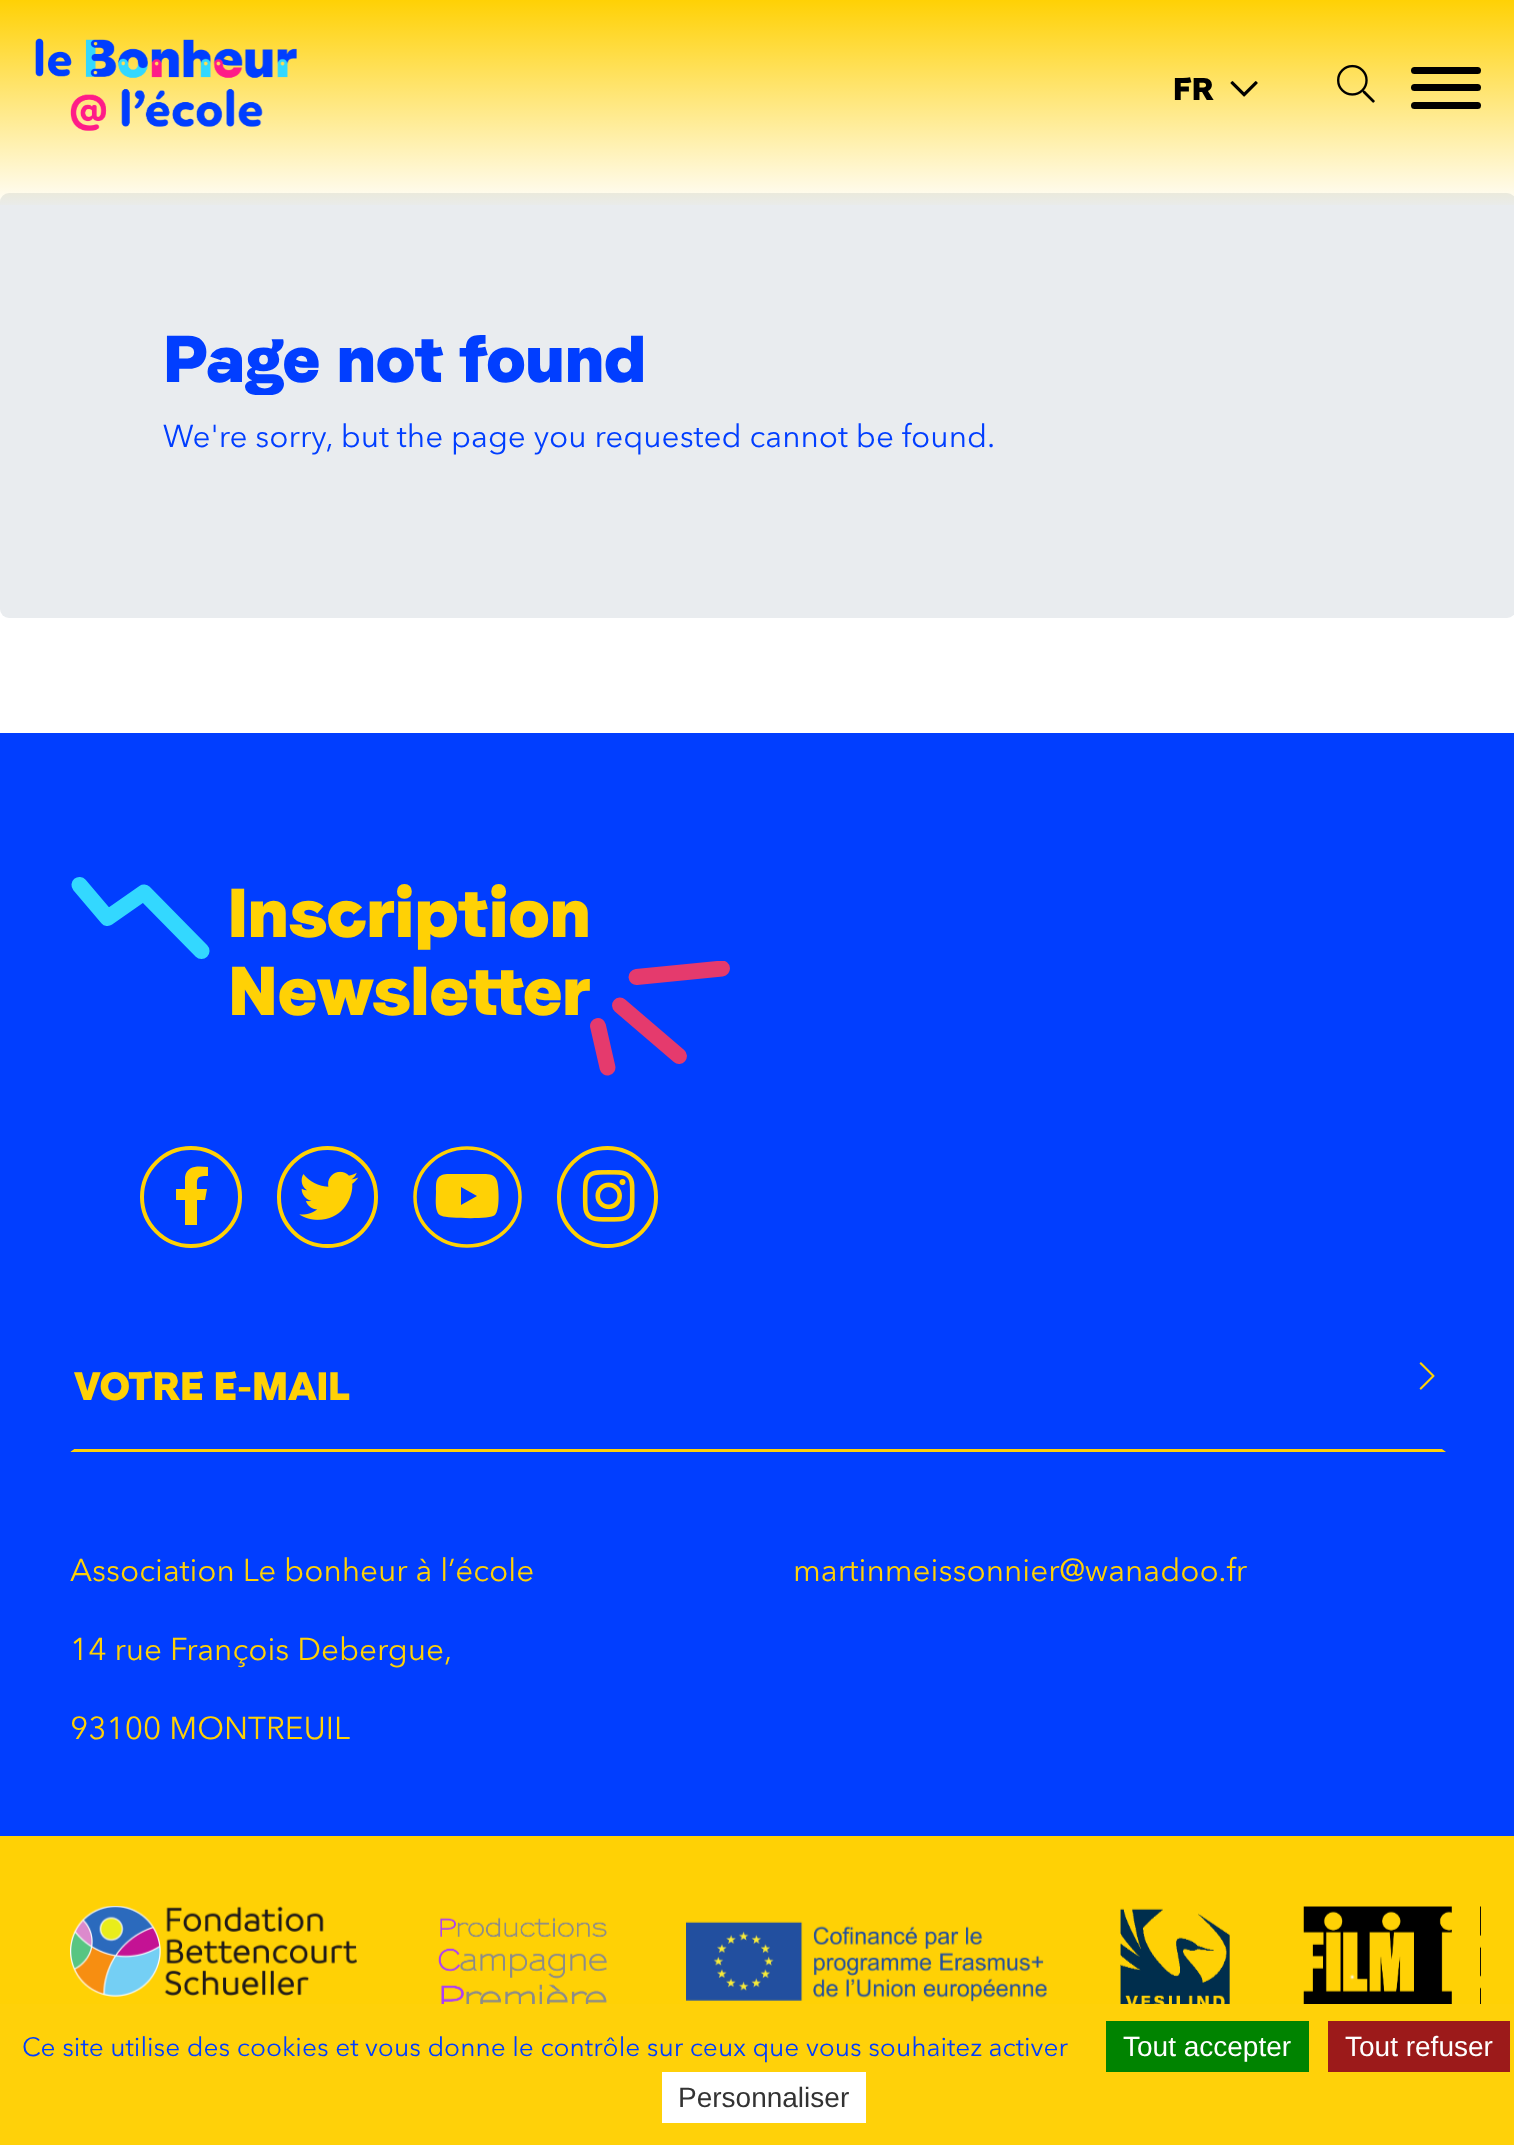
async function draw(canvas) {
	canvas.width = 1514;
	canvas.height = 2145;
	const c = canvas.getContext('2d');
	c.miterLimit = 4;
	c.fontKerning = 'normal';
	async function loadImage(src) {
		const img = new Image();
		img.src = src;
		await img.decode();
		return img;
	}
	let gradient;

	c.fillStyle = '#fff';
	c.fillRect(0, 0, 1514, 2145);
	c.fillStyle = '#e9ecef';
	c.beginPath();
	c.roundRect(0, 193, 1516, 425, 9);
	c.fill();
	gradient = c.createLinearGradient(758, 210, 758, 0);
	gradient.addColorStop(0, '#ffd10500');
	gradient.addColorStop(1, '#ffd105');
	c.fillStyle = gradient;
	c.fillRect(0, 0, 1514, 205);
	c.drawImage(await loadImage('img1.png'), 35, 38, 262, 93);
	c.font = '800 31.5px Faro';
	c.fillStyle = '#000';
	c.fillText('FR', 1173, 100);
	c.drawImage(await loadImage('img2.png'), 1230, 81, 28, 16);
	c.drawImage(await loadImage('img3.png'), 1337, 64, 38, 39);
	c.beginPath();
	c.roundRect(1411, 67, 70, 7, 3.5);
	c.fill();
	c.beginPath();
	c.roundRect(1411, 84, 70, 7, 3.5);
	c.fill();
	c.beginPath();
	c.roundRect(1411, 102, 70, 7, 3.5);
	c.fill();
	c.font = '800 66px Faro';
	c.fillStyle = '#013eff';
	c.fillText('Page not found', 163, 382);
	c.font = '31.5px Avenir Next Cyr';
	c.fillText('We\'re sorry, but the page you requested cannot be found.', 163, 447);
	c.fillRect(0, 733, 1514, 1103);
	c.beginPath();
	c.moveTo(79.5, 885);
	c.lineTo(107.5, 918);
	c.lineTo(144, 892.5);
	c.lineTo(201.5, 951);
	c.strokeStyle = '#33d8ff';
	c.lineWidth = 16.1;
	c.lineCap = 'round';
	c.lineJoin = 'round';
	c.stroke();
	c.font = '800 69px Faro';
	c.fillStyle = '#ffd105';
	c.fillText('Inscription', 228, 937);
	c.fillText('Newsletter', 228, 1015);
	c.save();
	c.beginPath();
	c.rect(590, 961, 140, 115);
	c.clip();
	c.beginPath();
	c.moveTo(598, 1026);
	c.lineTo(607.5, 1067.5);
	c.moveTo(620, 1005.5);
	c.lineTo(679, 1056);
	c.moveTo(722, 968.5);
	c.lineTo(636.5, 977);
	c.strokeStyle = '#e53a6d';
	c.lineWidth = 15.9;
	c.stroke();
	c.restore();
	c.beginPath();
	c.arc(191, 1197, 49, 0, 2 * Math.PI);
	c.strokeStyle = '#ffd105';
	c.lineWidth = 4;
	c.stroke();
	c.beginPath();
	c.moveTo(205, 1200);
	c.lineTo(197, 1200);
	c.lineTo(197, 1225);
	c.lineTo(185, 1225);
	c.lineTo(185, 1200);
	c.lineTo(176, 1200);
	c.lineTo(176, 1189);
	c.lineTo(185, 1189);
	c.lineTo(185, 1177);
	c.bezierCurveTo(187, 1165, 198, 1166, 208, 1167);
	c.lineTo(208, 1176);
	c.bezierCurveTo(196, 1176, 197, 1178, 197, 1189);
	c.lineTo(207, 1189);
	c.closePath();
	c.fill();
	c.beginPath();
	c.roundRect(279, 1148, 97, 98, 48.5);
	c.lineJoin = 'miter';
	c.stroke();
	c.drawImage(await loadImage('img4.png'), 299, 1171, 60, 49);
	c.beginPath();
	c.moveTo(467, 1148);
	c.bezierCurveTo(496, 1148, 520, 1170, 520, 1197);
	c.bezierCurveTo(520, 1224, 496, 1246, 467, 1246);
	c.bezierCurveTo(438.5, 1246, 415, 1224, 415, 1197);
	c.bezierCurveTo(415, 1170, 438.5, 1148, 467, 1148);
	c.closePath();
	c.lineWidth = 3.5;
	c.lineCap = 'butt';
	c.stroke();
	c.beginPath();
	c.moveTo(497, 1181);
	c.bezierCurveTo(499, 1188, 500, 1210, 495, 1215);
	c.bezierCurveTo(490, 1220, 446, 1218, 442, 1216);
	c.bezierCurveTo(439, 1215, 438, 1214, 437, 1211);
	c.bezierCurveTo(435, 1205, 436, 1197, 436, 1191);
	c.bezierCurveTo(436, 1181, 436, 1175, 447, 1174);
	c.lineTo(461, 1174);
	c.lineTo(480, 1174);
	c.bezierCurveTo(486, 1174, 495, 1173, 497, 1181);
	c.closePath();
	c.moveTo(461, 1205);
	c.lineTo(477, 1196);
	c.lineTo(461, 1187);
	c.closePath();
	c.fill();
	c.beginPath();
	c.roundRect(559, 1148, 97, 98, 48.5);
	c.lineWidth = 4;
	c.stroke();
	c.drawImage(await loadImage('img5.png'), 582, 1170, 53, 52);
	c.beginPath();
	c.moveTo(1446, 1452);
	c.lineTo(70, 1452);
	c.lineTo(74, 1449);
	c.lineTo(1442, 1449);
	c.closePath();
	c.fill();
	c.fillStyle = '#013eff';
	c.beginPath();
	c.moveTo(70, 1452);
	c.lineTo(70, 1335);
	c.lineTo(74, 1339);
	c.lineTo(74, 1449);
	c.closePath();
	c.fill();
	c.font = '800 39.5px Faro';
	c.fillStyle = '#ffd105';
	c.fillText('VOTRE E-MAIL', 74, 1400);
	c.drawImage(await loadImage('img6.png'), 1419, 1362, 16, 28);
	c.font = '31.5px Avenir Next Cyr';
	for (const [text, x, y] of [
		['Association Le bonheur à l’école', 70, 1581],
		['14 rue François Debergue,', 70, 1660],
		['93100 MONTREUIL', 70, 1739],
		['martinmeissonnier@wanadoo.fr', 793, 1581],
	]) {
		c.fillText(text, x, y);
	}
	c.fillRect(0, 1836, 1514, 168);
	c.drawImage(await loadImage('img7.png'), 70, 1906, 287, 91);
	c.drawImage(await loadImage('img8.png'), 438, 1917, 169, 87);
	c.drawImage(await loadImage('img9.png'), 686, 1921, 361, 81);
	c.drawImage(await loadImage('img10.png'), 1120, 1908, 110, 96);
	c.drawImage(await loadImage('img11.png'), 1303, 1906, 178, 98);
	c.fillStyle = '#ffd109';
	c.fillRect(0, 2004, 1514, 141);
	c.font = '26.25px Avenir Next Cyr';
	c.fillStyle = '#013eff';
	c.fillText('Ce site utilise des cookies et vous donne le contrôle sur ceux que vous souhaitez activer', 22, 2056);
	c.fillStyle = '#008300';
	c.fillRect(1106, 2021, 203, 51);
	c.font = '28px Liberation Sans';
	c.fillStyle = '#fff';
	c.fillText('Tout accepter', 1123, 2056);
	c.fillStyle = '#9c1a1a';
	c.fillRect(1328, 2021, 182, 51);
	c.fillStyle = '#fff';
	c.fillText('Tout refuser', 1345, 2056);
	c.fillRect(662, 2072, 204, 51);
	c.fillStyle = '#333';
	c.fillText('Personnaliser', 678, 2107);
}

draw(document.querySelector('canvas'));
